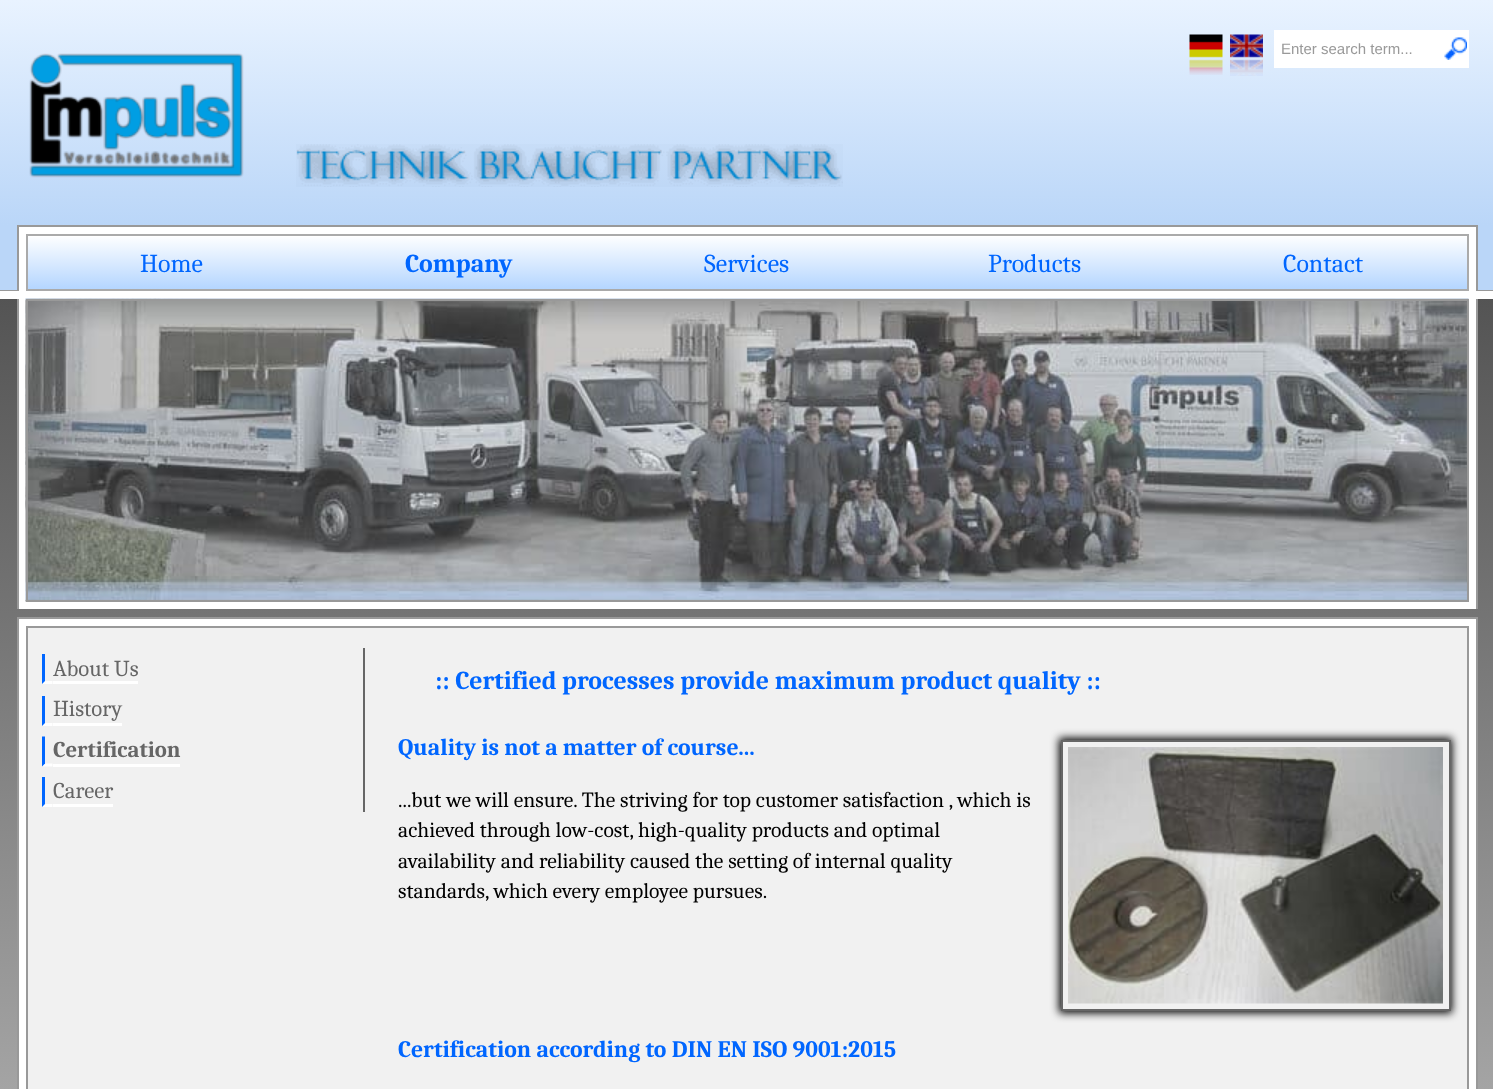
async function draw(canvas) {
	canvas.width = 1493;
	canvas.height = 1089;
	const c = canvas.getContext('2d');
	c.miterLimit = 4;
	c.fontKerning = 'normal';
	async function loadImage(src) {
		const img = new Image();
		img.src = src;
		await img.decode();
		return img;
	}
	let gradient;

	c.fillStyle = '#fff';
	c.fillRect(0, 0, 1493, 1089);
	gradient = c.createLinearGradient(747, 0, 747, 225);
	gradient.addColorStop(0, '#e9f3ff');
	gradient.addColorStop(1, '#bad6f8');
	c.fillStyle = gradient;
	c.fillRect(0, 0, 1493, 225);
	c.drawImage(await loadImage('img1.png'), 1189, 34, 34, 41);
	c.drawImage(await loadImage('img2.png'), 1230, 34, 33, 42);
	c.fillStyle = '#fff';
	c.fillRect(1274, 30, 195, 38);
	c.font = '15px Liberation Sans';
	c.fillStyle = '#999';
	c.fillText('Enter search term...', 1281, 54);
	c.drawImage(await loadImage('img3.png'), 1444, 37, 23, 23);
	c.drawImage(await loadImage('img4.png'), 29, 53, 215, 125);
	c.drawImage(await loadImage('img5.png'), 296, 144, 547, 43);
	for (const [x, y, w, h, color] of [
		[0, 225, 1493, 65, '#bad6f8'],
		[0, 290, 1493, 1, '#999'],
		[19, 227, 1457, 64, '#fff'],
		[17, 225, 1461, 2, '#999'],
		[1476, 225, 2, 66, '#999'],
		[17, 225, 2, 66, '#999'],
	]) {
		c.fillStyle = color;
		c.fillRect(x, y, w, h);
	}
	gradient = c.createLinearGradient(747, 235, 747, 290);
	gradient.addColorStop(0, '#fff');
	gradient.addColorStop(1, '#b3d5ff');
	c.fillStyle = gradient;
	c.fillRect(28, 237, 1439, 52);
	c.strokeStyle = '#aaa';
	c.lineWidth = 2;
	c.strokeRect(27, 235, 1441, 55);
	c.font = '25.9px Caladea';
	c.fillStyle = '#06f';
	c.fillText('Home', 140, 272);
	c.font = 'bold 25.9px Caladea';
	c.fillText('Company', 405, 272);
	c.font = '25.9px Caladea';
	for (const [text, x, y] of [
		['Services', 704, 272],
		['Products', 988, 272],
		['Contact', 1283, 272],
	]) {
		c.fillText(text, x, y);
	}
	gradient = c.createLinearGradient(747, 298, 747, 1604);
	gradient.addColorStop(0, '#545454');
	gradient.addColorStop(1, '#d8d8d8');
	c.fillStyle = gradient;
	c.fillRect(0, 299, 1493, 790);
	for (const [x, y, w, h, color] of [
		[19, 299, 1457, 310, '#fff'],
		[1476, 299, 2, 310, '#999'],
		[17, 299, 2, 310, '#999'],
	]) {
		c.fillStyle = color;
		c.fillRect(x, y, w, h);
	}
	c.drawImage(await loadImage('img6.png'), 25, 298, 1444, 304);
	c.strokeStyle = '#999';
	c.strokeRect(27, 300, 1441, 301);
	for (const [x, y, w, h, color] of [
		[19, 619, 1457, 470, '#fff'],
		[17, 617, 1461, 2, '#999'],
		[1476, 617, 2, 472, '#999'],
		[17, 617, 2, 472, '#999'],
	]) {
		c.fillStyle = color;
		c.fillRect(x, y, w, h);
	}
	c.fillStyle = '#f1f1f1';
	c.beginPath();
	c.rect(27, 627, 1441, 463);
	c.fill();
	c.stroke();
	c.fillStyle = '#666';
	c.fillRect(363, 648, 2, 164);
	c.font = '22.75px Caladea';
	c.fillText('About Us', 53, 676);
	c.fillStyle = '#fff';
	c.beginPath();
	c.moveTo(52.5, 684);
	c.lineTo(42, 684);
	c.lineTo(45, 681);
	c.lineTo(52.5, 681);
	c.closePath();
	c.fill();
	c.fillStyle = '#06f';
	c.beginPath();
	c.moveTo(42, 684);
	c.lineTo(42, 654);
	c.lineTo(45, 654);
	c.lineTo(45, 681);
	c.closePath();
	c.fill();
	c.fillStyle = '#fff';
	c.fillRect(53, 681, 85, 3);
	c.fillStyle = '#666';
	c.fillText('History', 53, 716);
	c.fillStyle = '#fff';
	c.beginPath();
	c.moveTo(52.5, 726);
	c.lineTo(42, 726);
	c.lineTo(45, 723);
	c.lineTo(52.5, 723);
	c.closePath();
	c.fill();
	c.fillStyle = '#06f';
	c.beginPath();
	c.moveTo(42, 726);
	c.lineTo(42, 696);
	c.lineTo(45, 696);
	c.lineTo(45, 723);
	c.closePath();
	c.fill();
	c.fillStyle = '#fff';
	c.fillRect(53, 723, 69, 3);
	c.font = 'bold 22.75px Caladea';
	c.fillStyle = '#666';
	c.fillText('Certification', 53, 757);
	c.fillStyle = '#fff';
	c.beginPath();
	c.moveTo(52.5, 766.5);
	c.lineTo(42, 766.5);
	c.lineTo(45, 763.5);
	c.lineTo(52.5, 763.5);
	c.closePath();
	c.fill();
	c.fillStyle = '#06f';
	c.beginPath();
	c.moveTo(42, 766.5);
	c.lineTo(42, 736.5);
	c.lineTo(45, 736.5);
	c.lineTo(45, 763.5);
	c.closePath();
	c.fill();
	c.fillStyle = '#fff';
	c.fillRect(53, 764, 127, 3);
	c.font = '22.75px Caladea';
	c.fillStyle = '#666';
	c.fillText('Career', 53, 798);
	c.fillStyle = '#fff';
	c.beginPath();
	c.moveTo(52.5, 807);
	c.lineTo(42, 807);
	c.lineTo(45, 804);
	c.lineTo(52.5, 804);
	c.closePath();
	c.fill();
	c.fillStyle = '#06f';
	c.beginPath();
	c.moveTo(42, 807);
	c.lineTo(42, 777);
	c.lineTo(45, 777);
	c.lineTo(45, 804);
	c.closePath();
	c.fill();
	c.fillStyle = '#fff';
	c.fillRect(53, 804, 60, 3);
	c.font = 'bold 25.9px Caladea';
	c.fillStyle = '#06f';
	c.fillText(':: Certified processes provide maximum product quality ::', 435, 689);
	c.font = 'bold 23.75px Caladea';
	c.fillText('Quality is not a matter of course...', 398, 755);
	c.save();
	c.beginPath();
	c.moveTo(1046, 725);
	c.lineTo(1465, 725);
	c.lineTo(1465, 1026);
	c.lineTo(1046, 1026);
	c.closePath();
	c.moveTo(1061, 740);
	c.lineTo(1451, 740);
	c.lineTo(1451, 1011);
	c.lineTo(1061, 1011);
	c.closePath();
	c.clip('evenodd');
	c.fillStyle = '#000';
	c.filter = 'blur(4px)';
	c.beginPath();
	c.rect(1059, 738, 393, 275);
	c.fill();
	c.filter = 'none';
	c.restore();
	c.strokeStyle = '#666';
	c.strokeRect(1062, 741, 388, 269);
	c.drawImage(await loadImage('img7.png'), 1068, 747, 375, 257);
	c.font = '21.6px Caladea';
	c.fillStyle = '#000';
	for (const [text, x, y] of [
		['...but we will ensure. The striving for top customer satisfaction , which is', 398, 807],
		['achieved through low-cost, high-quality products and optimal', 398, 837],
		['availability and reliability caused the setting of internal quality', 398, 868],
		['standards, which every employee pursues.', 398, 898],
	]) {
		c.fillText(text, x, y);
	}
	c.font = 'bold 23.75px Caladea';
	c.fillStyle = '#06f';
	c.fillText('Certification according to DIN EN ISO 9001:2015', 398, 1057);
}

draw(document.querySelector('canvas'));
